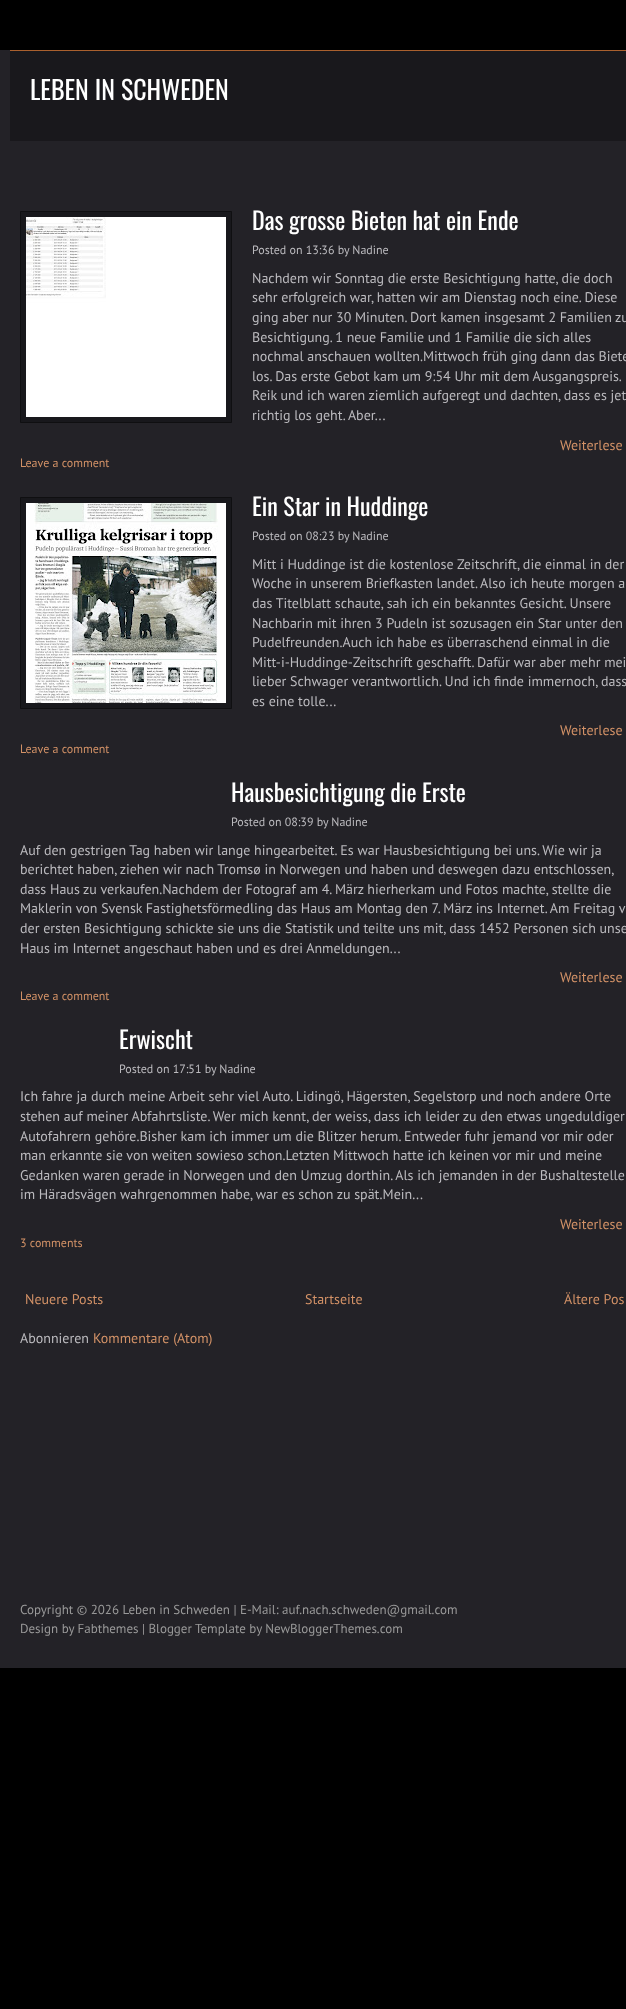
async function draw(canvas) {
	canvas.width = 626;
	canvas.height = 2009;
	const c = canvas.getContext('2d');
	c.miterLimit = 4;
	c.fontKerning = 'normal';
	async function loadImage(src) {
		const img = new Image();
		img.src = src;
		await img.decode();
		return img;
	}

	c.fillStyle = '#000';
	c.fillRect(0, 0, 626, 2009);
	for (const [x, y, w, h, color] of [
		[0, 50, 626, 1618, '#232227'],
		[10, 51, 616, 90, '#19181c'],
		[10, 50, 616, 1, '#aa602e'],
	]) {
		c.fillStyle = color;
		c.fillRect(x, y, w, h);
	}
	c.font = '26px Oswald';
	c.fillStyle = '#fff';
	c.fillText('LEBEN IN SCHWEDEN', 30, 100);
	c.fillStyle = '#18181c';
	c.beginPath();
	c.rect(20.5, 211.5, 211, 211);
	c.fill();
	c.strokeStyle = '#0f0f11';
	c.stroke();
	c.drawImage(await loadImage('img1.png'), 26, 217, 200, 200);
	c.font = '24px Oswald';
	c.fillStyle = '#fff';
	c.fillText('Das grosse Bieten hat ein Ende', 252, 230);
	c.font = '12px PT Sans';
	c.fillStyle = '#bcbbbf';
	c.fillText('Posted on 13:36 by Nadine', 252, 254);
	c.font = '14px PT Sans';
	for (const [text, x, y] of [
		['Nachdem wir Sonntag die erste Besichtigung hatte, die doch', 252, 283],
		['sehr erfolgreich war, hatten wir am Dienstag noch eine. Diese', 252, 302],
		['ging aber nur 30 Minuten. Dort kamen insgesamt 2 Familien zu', 252, 322],
		['Besichtigung. 1 neue Familie und 1 Familie die sich alles', 252, 342],
		['nochmal anschauen wollten.Mittwoch früh ging dann das Biete', 252, 361],
		['los. Das erste Gebot kam um 9:54 Uhr mit dem Ausgangspreis.', 252, 381],
		['Reik und ich waren ziemlich aufgeregt und dachten, dass es jet', 252, 400],
		['richtig los geht. Aber...', 252, 420],
	]) {
		c.fillText(text, x, y);
	}
	c.fillStyle = '#d39267';
	c.fillText('Weiterlese', 560, 450);
	c.font = '12px PT Sans';
	c.fillText('Leave a comment', 20, 467);
	c.fillStyle = '#18181c';
	c.beginPath();
	c.rect(20.5, 497.5, 211, 211);
	c.fill();
	c.stroke();
	c.drawImage(await loadImage('img2.png'), 26, 503, 200, 200);
	c.font = '24px Oswald';
	c.fillStyle = '#fff';
	c.fillText('Ein Star in Huddinge', 252, 516);
	c.font = '12px PT Sans';
	c.fillStyle = '#bcbbbf';
	c.fillText('Posted on 08:23 by Nadine', 252, 540);
	c.font = '14px PT Sans';
	for (const [text, x, y] of [
		['Mitt i Huddinge ist die kostenlose Zeitschrift, die einmal in der', 252, 569],
		['Woche in unserem Briefkasten landet. Also ich heute morgen a', 252, 588],
		['das Titelblatt schaute, sah ich ein bekanntes Gesicht. Unsere', 252, 608],
		['Nachbarin mit ihren 3 Pudeln ist sozusagen ein Star unter den', 252, 628],
		['Pudelfreunden.Auch ich habe es überraschend einmal in die', 252, 647],
		['Mitt-i-Huddinge-Zeitschrift geschafft. Dafür war aber mehr mei', 252, 667],
		['lieber Schwager verantwortlich. Und ich finde immernoch, dass', 252, 686],
		['es eine tolle...', 252, 706],
	]) {
		c.fillText(text, x, y);
	}
	c.fillStyle = '#d39267';
	c.fillText('Weiterlese', 560, 735);
	c.font = '12px PT Sans';
	c.fillText('Leave a comment', 20, 753);
	c.font = '24px Oswald';
	c.fillStyle = '#fff';
	c.fillText('Hausbesichtigung die Erste', 231, 802);
	c.font = '12px PT Sans';
	c.fillStyle = '#bcbbbf';
	c.fillText('Posted on 08:39 by Nadine', 231, 826);
	c.font = '14px PT Sans';
	for (const [text, x, y] of [
		['Auf den gestrigen Tag haben wir lange hingearbeitet. Es war Hausbesichtigung bei uns. Wie wir ja', 20, 855],
		['berichtet haben, ziehen wir nach Tromsø in Norwegen und haben und deswegen dazu entschlossen,', 20, 874],
		['dass Haus zu verkaufen.Nachdem der Fotograf am 4. März hierherkam und Fotos machte, stellte die', 20, 894],
		['Maklerin von Svensk Fastighetsförmedling das Haus am Montag den 7. März ins Internet. Am Freitag v', 20, 913],
		['der ersten Besichtigung schickte sie uns die Statistik und teilte uns mit, dass 1452 Personen sich unse', 20, 933],
		['Haus im Internet angeschaut haben und es drei Anmeldungen...', 20, 953],
	]) {
		c.fillText(text, x, y);
	}
	c.fillStyle = '#d39267';
	c.fillText('Weiterlese', 560, 982);
	c.font = '12px PT Sans';
	c.fillText('Leave a comment', 20, 1000);
	c.font = '24px Oswald';
	c.fillStyle = '#fff';
	c.fillText('Erwischt', 119, 1049);
	c.font = '12px PT Sans';
	c.fillStyle = '#bcbbbf';
	c.fillText('Posted on 17:51 by Nadine', 119, 1073);
	c.font = '14px PT Sans';
	for (const [text, x, y] of [
		['Ich fahre ja durch meine Arbeit sehr viel Auto. Lidingö, Hägersten, Segelstorp und noch andere Orte', 20, 1101],
		['stehen auf meiner Abfahrtsliste. Wer mich kennt, der weiss, dass ich leider zu den etwas ungeduldiger', 20, 1121],
		['Autofahrern gehöre.Bisher kam ich immer um die Blitzer herum. Entweder fuhr jemand vor mir oder', 20, 1141],
		['man erkannte sie von weiten sowieso schon.Letzten Mittwoch hatte ich keinen vor mir und meine', 20, 1160],
		['Gedanken waren gerade in Norwegen und den Umzug dorthin. Als ich jemanden in der Bushaltestelle', 20, 1180],
		['im Häradsvägen wahrgenommen habe, war es schon zu spät.Mein...', 20, 1199],
	]) {
		c.fillText(text, x, y);
	}
	c.fillStyle = '#d39267';
	c.fillText('Weiterlese', 560, 1229);
	c.font = '12px PT Sans';
	c.fillText('3 comments', 20, 1247);
	c.font = '14px PT Sans';
	for (const [text, x, y] of [
		['Neuere Posts', 25, 1304],
		['Startseite', 305, 1304],
		['Ältere Pos', 564, 1304],
	]) {
		c.fillText(text, x, y);
	}
	c.fillStyle = '#bcbbbf';
	c.fillText('Abonnieren', 20, 1343);
	c.fillStyle = '#d39267';
	c.fillText('Kommentare (Atom)', 93, 1343);
	c.font = '13px PT Sans';
	c.fillStyle = '#999';
	c.fillText('Copyright © 2026 Leben in Schweden | E-Mail: auf.nach.schweden@gmail.com', 20, 1614);
	c.fillText('Design by Fabthemes | Blogger Template by NewBloggerThemes.com', 20, 1633);
}

draw(document.querySelector('canvas'));
